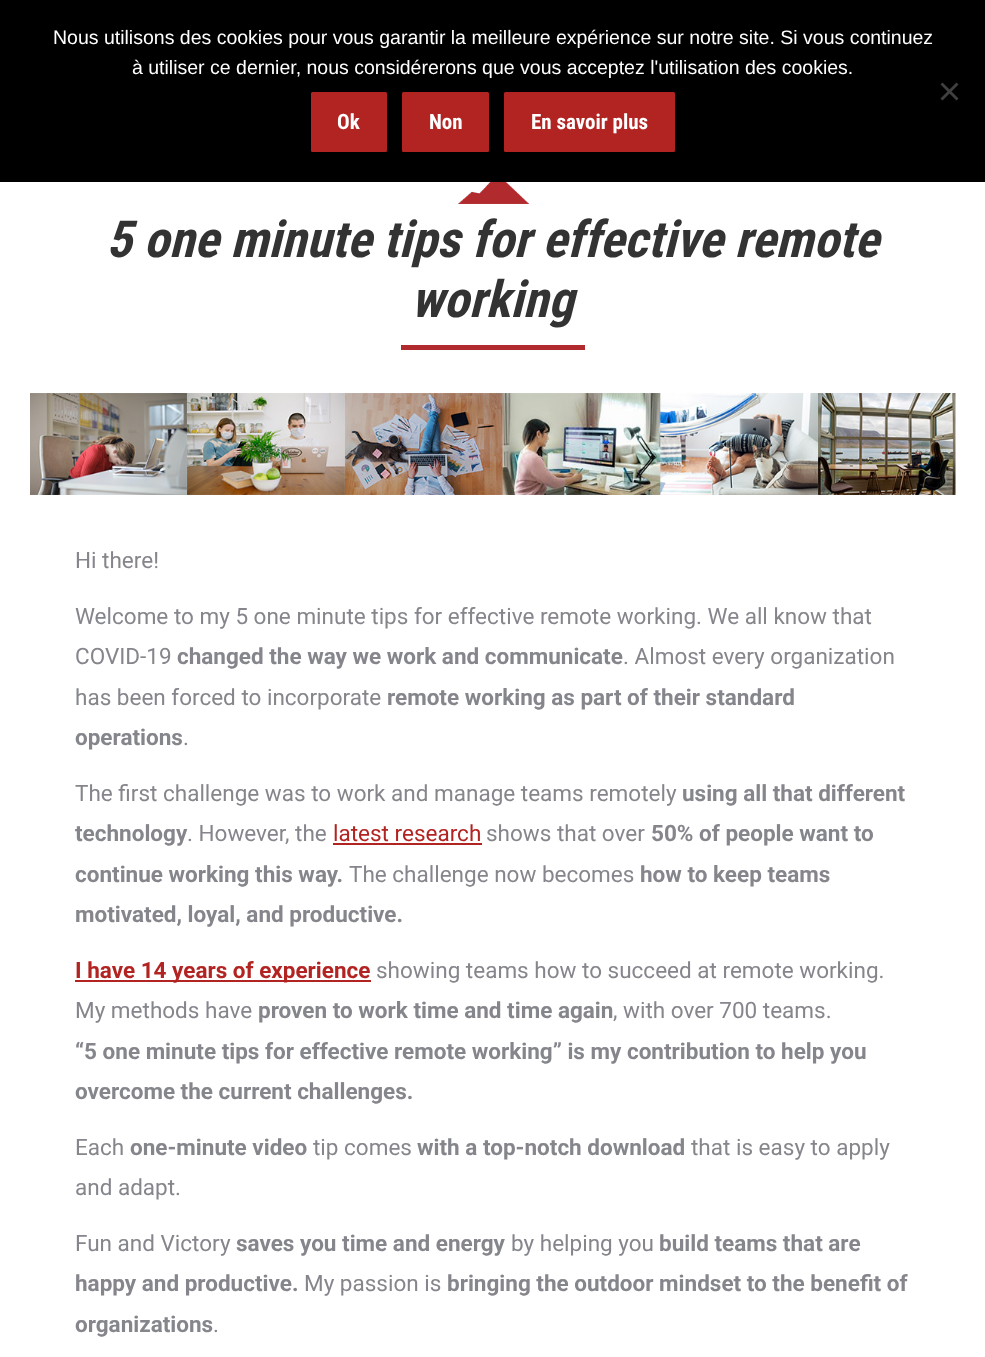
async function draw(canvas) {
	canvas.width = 985;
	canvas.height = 1357;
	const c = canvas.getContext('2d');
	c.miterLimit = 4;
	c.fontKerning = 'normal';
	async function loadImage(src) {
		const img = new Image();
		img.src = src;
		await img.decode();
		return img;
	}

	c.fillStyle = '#fff';
	c.fillRect(0, 0, 985, 1357);
	c.fillStyle = '#000';
	c.fillRect(0, 0, 985, 182);
	c.font = '19.5px Liberation Sans';
	c.fillStyle = '#fff';
	c.fillText('Nous utilisons des cookies pour vous garantir la meilleure expérience sur notre site. Si vous continuez', 53, 44);
	c.fillText('à utiliser ce dernier, nous considérerons que vous acceptez l\'utilisation des cookies.', 132, 74);
	c.fillStyle = '#404040';
	c.beginPath();
	c.moveTo(956.5, 82.5);
	c.lineTo(958.5, 84.5);
	c.lineTo(942.5, 100.5);
	c.lineTo(940.5, 98.5);
	c.closePath();
	c.fill();
	c.beginPath();
	c.moveTo(940.5, 84.5);
	c.lineTo(942.5, 82.5);
	c.lineTo(958.5, 98.5);
	c.lineTo(956.5, 100.5);
	c.closePath();
	c.fill();
	c.fillStyle = '#b22422';
	c.beginPath();
	c.roundRect(311, 92, 76, 60, 1.5);
	c.fill();
	c.font = 'bold 21px Roboto Condensed';
	c.fillStyle = '#fff';
	c.fillText('Ok', 337, 129);
	c.fillStyle = '#b22422';
	c.beginPath();
	c.roundRect(402, 92, 87, 60, 1.5);
	c.fill();
	c.fillStyle = '#fff';
	c.fillText('Non', 429, 129);
	c.fillStyle = '#b22422';
	c.beginPath();
	c.roundRect(504, 92, 171, 60, 1.5);
	c.fill();
	c.fillStyle = '#fff';
	c.fillText('En savoir plus', 531, 129);
	c.drawImage(await loadImage('img1.png'), 457, 182, 73, 22);
	c.font = 'italic bold 51px Roboto Condensed';
	c.fillStyle = '#333';
	c.fillText('5 one minute tips for effective remote', 106, 257);
	c.fillText('working', 411, 317);
	c.fillStyle = '#b12a2e';
	c.fillRect(401, 345, 184, 5);
	c.drawImage(await loadImage('img2.png'), 30, 393, 926, 102);
	c.font = '22.5px Roboto';
	c.fillStyle = '#85868c';
	for (const [text, x, y] of [
		['Hi there!', 75, 568],
		['Welcome to my 5 one minute tips for effective remote working. We all know that', 75, 624],
		['COVID-19', 75, 664],
	]) {
		c.fillText(text, x, y);
	}
	c.font = 'bold 22.5px Roboto';
	c.fillText('changed the way we work and communicate', 177, 664);
	c.font = '22.5px Roboto';
	c.fillText('. Almost every organization', 623, 664);
	c.fillText('has been forced to incorporate', 75, 705);
	c.font = 'bold 22.5px Roboto';
	c.fillText('remote working as part of their standard', 387, 705);
	c.fillText('operations', 75, 745);
	c.font = '22.5px Roboto';
	c.fillText('.', 183, 745);
	c.fillText('The first challenge was to work and manage teams remotely', 75, 801);
	c.font = 'bold 22.5px Roboto';
	c.fillText('using all that different', 682, 801);
	c.fillText('technology', 75, 841);
	c.font = '22.5px Roboto';
	c.fillText('. However, the', 187, 841);
	c.fillStyle = '#b22422';
	c.fillText('latest research', 333, 841);
	c.fillRect(333, 843, 149, 2);
	c.fillStyle = '#85868c';
	c.fillText('shows that over', 486, 841);
	c.font = 'bold 22.5px Roboto';
	c.fillText('50% of people want to', 651, 841);
	c.fillText('continue working this way.', 75, 882);
	c.font = '22.5px Roboto';
	c.fillText('The challenge now becomes', 349, 882);
	c.font = 'bold 22.5px Roboto';
	c.fillText('how to keep teams', 640, 882);
	c.fillText('motivated, loyal, and productive.', 75, 922);
	c.fillStyle = '#b22422';
	c.fillRect(75, 980, 296, 2);
	c.fillText('I have 14 years of experience', 75, 978);
	c.font = '22.5px Roboto';
	c.fillStyle = '#85868c';
	c.fillText('showing teams how to succeed at remote working.', 376, 978);
	c.fillText('My methods have', 75, 1018);
	c.font = 'bold 22.5px Roboto';
	c.fillText('proven to work time and time again', 258, 1018);
	c.font = '22.5px Roboto';
	c.fillText(', with over 700 teams.', 613, 1018);
	c.font = 'bold 22.5px Roboto';
	c.fillText('“5 one minute tips for effective remote working” is my contribution to help you', 75, 1059);
	c.fillText('overcome the current challenges.', 75, 1099);
	c.font = '22.5px Roboto';
	c.fillText('Each', 75, 1155);
	c.font = 'bold 22.5px Roboto';
	c.fillText('one-minute video', 130, 1155);
	c.font = '22.5px Roboto';
	c.fillText('tip comes', 313, 1155);
	c.font = 'bold 22.5px Roboto';
	c.fillText('with a top-notch download', 417, 1155);
	c.font = '22.5px Roboto';
	for (const [text, x, y] of [
		['that is easy to apply', 691, 1155],
		['and adapt.', 75, 1195],
		['Fun and Victory', 75, 1251],
	]) {
		c.fillText(text, x, y);
	}
	c.font = 'bold 22.5px Roboto';
	c.fillText('saves you time and energy', 236, 1251);
	c.font = '22.5px Roboto';
	c.fillText('by helping you', 511, 1251);
	c.font = 'bold 22.5px Roboto';
	c.fillText('build teams that are', 659, 1251);
	c.fillText('happy and productive.', 75, 1291);
	c.font = '22.5px Roboto';
	c.fillText('My passion is', 304, 1291);
	c.font = 'bold 22.5px Roboto';
	c.fillText('bringing the outdoor mindset to the benefit of', 447, 1291);
	c.fillText('organizations', 75, 1332);
	c.font = '22.5px Roboto';
	c.fillText('.', 213, 1332);
}

draw(document.querySelector('canvas'));
